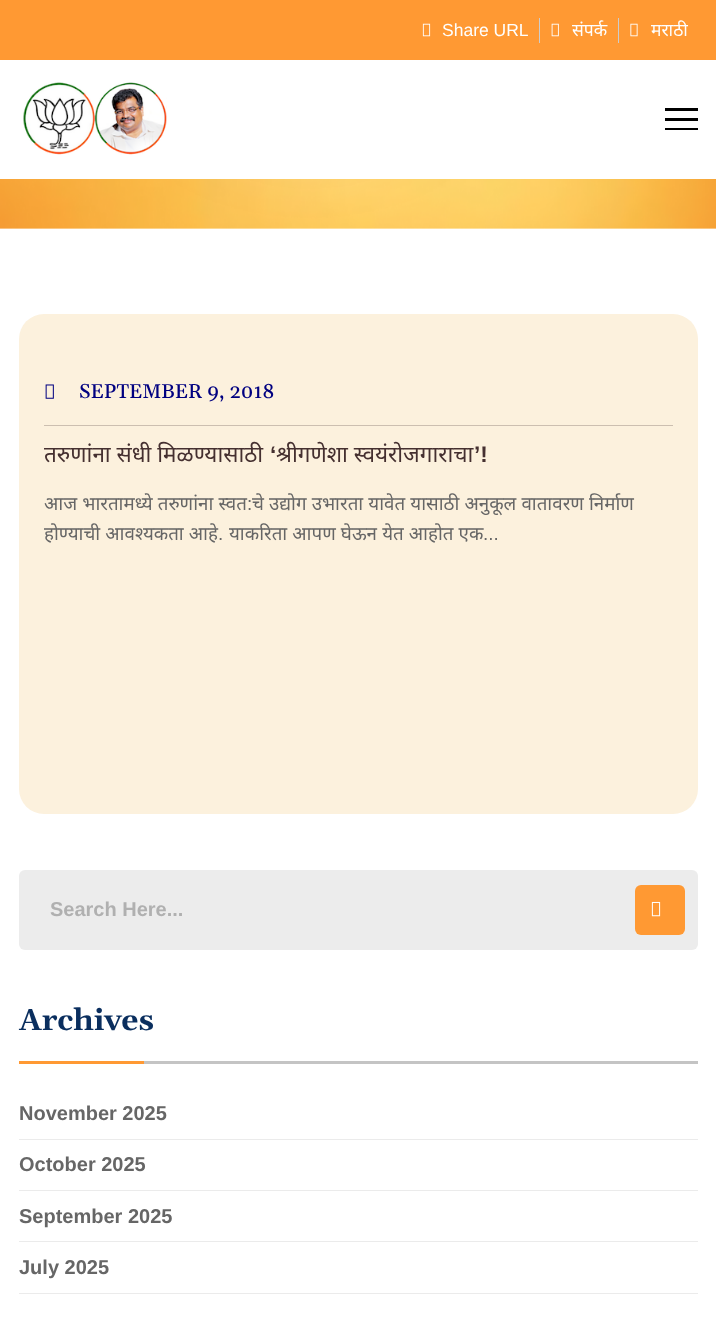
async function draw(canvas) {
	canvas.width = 716;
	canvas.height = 1320;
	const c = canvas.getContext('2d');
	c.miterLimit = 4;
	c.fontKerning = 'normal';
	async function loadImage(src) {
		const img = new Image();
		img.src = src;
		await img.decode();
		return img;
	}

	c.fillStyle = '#fff';
	c.fillRect(0, 0, 716, 1320);
	c.fillStyle = '#f93';
	c.fillRect(0, 0, 716, 60);
	c.drawImage(await loadImage('img1.png'), 422, 23, 9, 14);
	c.font = '17.5px Liberation Sans';
	c.fillStyle = '#fff';
	c.fillText('Share URL', 442, 36);
	c.fillStyle = '#ccc';
	c.fillRect(539, 18, 1, 25);
	c.drawImage(await loadImage('img2.png'), 551, 23, 8, 14);
	c.font = '17.5px Noto Sans';
	c.fillStyle = '#fff';
	c.fillText('संपर्क', 572, 36);
	c.fillStyle = '#ccc';
	c.fillRect(618, 18, 1, 25);
	c.drawImage(await loadImage('img3.png'), 630, 23, 8, 14);
	c.fillStyle = '#fff';
	c.fillText('मराठी', 651, 36);
	c.drawImage(await loadImage('img4.png'), 23, 82, 144, 73);
	for (const [x, y, w, h, color] of [
		[665, 108, 33, 3, '#000'],
		[665, 118, 33, 3, '#000'],
		[665, 128, 33, 2, '#000'],
	]) {
		c.fillStyle = color;
		c.fillRect(x, y, w, h);
	}
	c.drawImage(await loadImage('img5.png'), 0, 179, 716, 50);
	c.fillStyle = '#fcf1dd';
	c.beginPath();
	c.roundRect(19, 314, 679, 500, 25);
	c.fill();
	c.drawImage(await loadImage('img6.png'), 45, 384, 9, 15);
	c.font = '500 20px Gelasio';
	c.fillStyle = '#000080';
	c.fillText('SEPTEMBER 9, 2018', 79, 398);
	c.fillStyle = '#ccbfb0';
	c.fillRect(44, 425, 629, 1);
	c.font = '22.5px Noto Sans';
	c.fillStyle = '#453030';
	c.fillText('तरुणांना संधी मिळण्यासाठी', 44, 462);
	c.font = 'bold 22.5px Liberation Sans';
	c.fillText('‘', 270, 462);
	c.font = '22.5px Noto Sans';
	c.fillText('श्रीगणेशा स्वयंरोजगाराचा', 276, 462);
	c.font = 'bold 22.5px Liberation Sans';
	c.fillText('’!', 474, 462);
	c.wordSpacing = '0.25px';
	c.font = '18.75px Noto Sans';
	c.fillStyle = '#666';
	c.fillText('आज भारतामध्ये तरुणांना स्वत', 44, 510);
	c.wordSpacing = '0px';
	c.font = '18.75px Liberation Sans';
	c.fillText(':', 247, 510);
	c.wordSpacing = '0.25px';
	c.font = '18.75px Noto Sans';
	c.fillText('चे उद्योग उभारता यावेत यासाठी अनुकूल वातावरण निर्माण', 252, 510);
	c.save();
	c.beginPath();
	c.rect(44, 489, 629, 85);
	c.clip();
	c.fillText('होण्याची आवश्यकता आहे', 44, 540);
	c.restore();
	c.wordSpacing = '0px';
	c.font = '18.75px Liberation Sans';
	c.fillText('.', 218, 540);
	c.wordSpacing = '0.25px';
	c.font = '18.75px Noto Sans';
	c.fillText('याकरिता आपण घेऊन येत आहोत एक', 229, 540);
	c.wordSpacing = '0px';
	c.font = '18.75px Liberation Sans';
	c.fillText('...', 483, 540);
	c.fillStyle = '#ececec';
	c.beginPath();
	c.roundRect(19, 870, 679, 80, 6);
	c.fill();
	c.font = 'bold 20px Liberation Sans';
	c.fillStyle = '#b0b0b0';
	c.fillText('Search Here...', 50, 916);
	c.fillStyle = '#f93';
	c.beginPath();
	c.roundRect(635, 885, 50, 50, 6);
	c.fill();
	c.drawImage(await loadImage('img7.png'), 651, 901, 10, 16);
	c.fillStyle = '#c4c4c4';
	c.fillRect(144, 1061, 554, 3);
	c.font = 'bold 30px Gelasio';
	c.fillStyle = '#0a2e5e';
	c.fillText('Archives', 19, 1030);
	c.fillStyle = '#f93';
	c.fillRect(19, 1061, 125, 3);
	c.fillStyle = '#ebebeb';
	c.fillRect(19, 1139, 679, 1);
	c.font = 'bold 20px Liberation Sans';
	c.fillStyle = '#666';
	c.fillText('November 2025', 19, 1120);
	c.fillStyle = '#ebebeb';
	c.fillRect(19, 1190, 679, 1);
	c.fillStyle = '#666';
	c.fillText('October 2025', 19, 1171);
	c.fillStyle = '#ebebeb';
	c.fillRect(19, 1241, 679, 1);
	c.fillStyle = '#666';
	c.fillText('September 2025', 19, 1223);
	c.fillStyle = '#ebebeb';
	c.fillRect(19, 1293, 679, 1);
	c.fillStyle = '#666';
	c.fillText('July 2025', 19, 1274);
}

draw(document.querySelector('canvas'));
